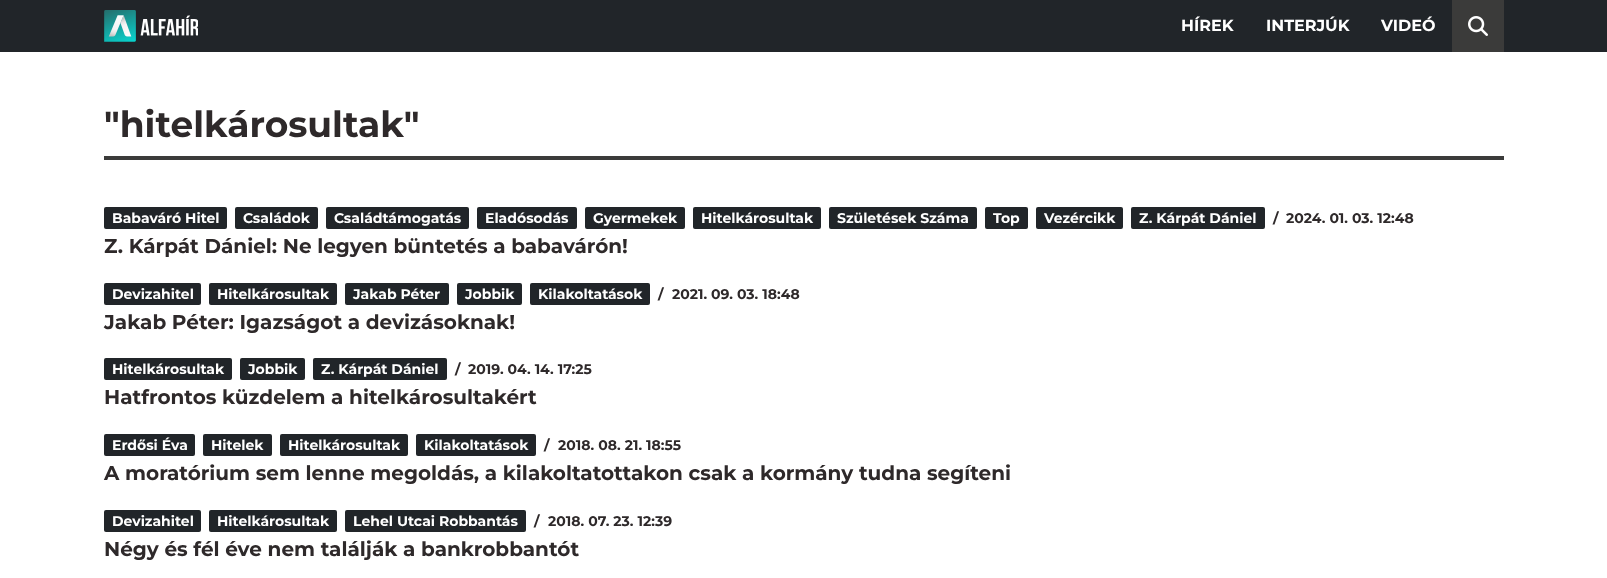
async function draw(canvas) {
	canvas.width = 1607;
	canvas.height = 578;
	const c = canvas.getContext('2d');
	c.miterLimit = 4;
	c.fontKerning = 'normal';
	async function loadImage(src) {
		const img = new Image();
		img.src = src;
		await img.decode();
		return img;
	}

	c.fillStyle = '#fff';
	c.fillRect(0, 0, 1607, 578);
	c.fillStyle = '#212529';
	c.fillRect(0, 0, 1607, 52);
	c.drawImage(await loadImage('img1.png'), 104, 10, 94, 32);
	c.font = 'bold 16px Montserrat';
	c.fillStyle = '#fff';
	for (const [text, x, y] of [
		['HÍREK', 1181, 31],
		['INTERJÚK', 1266, 31],
		['VIDEÓ', 1381, 31],
	]) {
		c.fillText(text, x, y);
	}
	c.fillStyle = '#3b3b3a';
	c.fillRect(1452, 0, 52, 52);
	c.drawImage(await loadImage('img2.png'), 1468, 16, 20, 20);
	c.fillRect(104, 156, 1400, 4);
	c.font = 'bold 36px Montserrat';
	c.fillStyle = '#2e292a';
	c.fillText('"hitelkárosultak"', 104, 137);
	c.fillStyle = '#212529';
	c.beginPath();
	c.roundRect(104, 207, 123, 22, 2);
	c.fill();
	c.font = 'bold 14px Montserrat';
	c.fillStyle = '#fff';
	c.fillText('Babaváró Hitel', 112, 223);
	c.fillStyle = '#212529';
	c.beginPath();
	c.roundRect(235, 207, 83, 22, 2);
	c.fill();
	c.fillStyle = '#fff';
	c.fillText('Családok', 243, 223);
	c.fillStyle = '#212529';
	c.beginPath();
	c.roundRect(326, 207, 143, 22, 2);
	c.fill();
	c.fillStyle = '#fff';
	c.fillText('Családtámogatás', 334, 223);
	c.fillStyle = '#212529';
	c.beginPath();
	c.roundRect(477, 207, 100, 22, 2);
	c.fill();
	c.fillStyle = '#fff';
	c.fillText('Eladósodás', 485, 223);
	c.fillStyle = '#212529';
	c.beginPath();
	c.roundRect(585, 207, 100, 22, 2);
	c.fill();
	c.fillStyle = '#fff';
	c.fillText('Gyermekek', 593, 223);
	c.fillStyle = '#212529';
	c.beginPath();
	c.roundRect(693, 207, 128, 22, 2);
	c.fill();
	c.fillStyle = '#fff';
	c.fillText('Hitelkárosultak', 701, 223);
	c.fillStyle = '#212529';
	c.beginPath();
	c.roundRect(829, 207, 148, 22, 2);
	c.fill();
	c.fillStyle = '#fff';
	c.fillText('Születések Száma', 837, 223);
	c.fillStyle = '#212529';
	c.beginPath();
	c.roundRect(985, 207, 43, 22, 2);
	c.fill();
	c.fillStyle = '#fff';
	c.fillText('Top', 993, 223);
	c.fillStyle = '#212529';
	c.beginPath();
	c.roundRect(1036, 207, 87, 22, 2);
	c.fill();
	c.fillStyle = '#fff';
	c.fillText('Vezércikk', 1044, 223);
	c.fillStyle = '#212529';
	c.beginPath();
	c.roundRect(1131, 207, 134, 22, 2);
	c.fill();
	c.fillStyle = '#fff';
	c.fillText('Z. Kárpát Dániel', 1139, 223);
	c.fillStyle = '#2e292a';
	c.fillText('/', 1273, 223);
	c.fillText('2024. 01. 03. 12:48', 1286, 223);
	c.font = 'bold 20px Montserrat';
	c.fillText('Z. Kárpát Dániel: Ne legyen büntetés a babavárón!', 104, 253);
	c.fillStyle = '#212529';
	c.beginPath();
	c.roundRect(104, 283, 97, 22, 2);
	c.fill();
	c.font = 'bold 14px Montserrat';
	c.fillStyle = '#fff';
	c.fillText('Devizahitel', 112, 299);
	c.fillStyle = '#212529';
	c.beginPath();
	c.roundRect(209, 283, 128, 22, 2);
	c.fill();
	c.fillStyle = '#fff';
	c.fillText('Hitelkárosultak', 217, 299);
	c.fillStyle = '#212529';
	c.beginPath();
	c.roundRect(345, 283, 104, 22, 2);
	c.fill();
	c.fillStyle = '#fff';
	c.fillText('Jakab Péter', 353, 299);
	c.fillStyle = '#212529';
	c.beginPath();
	c.roundRect(457, 283, 65, 22, 2);
	c.fill();
	c.fillStyle = '#fff';
	c.fillText('Jobbik', 465, 299);
	c.fillStyle = '#212529';
	c.beginPath();
	c.roundRect(530, 283, 120, 22, 2);
	c.fill();
	c.fillStyle = '#fff';
	c.fillText('Kilakoltatások', 538, 299);
	c.fillStyle = '#2e292a';
	c.fillText('/', 658, 299);
	c.fillText('2021. 09. 03. 18:48', 672, 299);
	c.font = 'bold 20px Montserrat';
	c.fillText('Jakab Péter: Igazságot a devizásoknak!', 104, 329);
	c.fillStyle = '#212529';
	c.beginPath();
	c.roundRect(104, 358, 128, 22, 2);
	c.fill();
	c.font = 'bold 14px Montserrat';
	c.fillStyle = '#fff';
	c.fillText('Hitelkárosultak', 112, 374);
	c.fillStyle = '#212529';
	c.beginPath();
	c.roundRect(240, 358, 65, 22, 2);
	c.fill();
	c.fillStyle = '#fff';
	c.fillText('Jobbik', 248, 374);
	c.fillStyle = '#212529';
	c.beginPath();
	c.roundRect(313, 358, 134, 22, 2);
	c.fill();
	c.fillStyle = '#fff';
	c.fillText('Z. Kárpát Dániel', 321, 374);
	c.fillStyle = '#2e292a';
	c.fillText('/', 455, 374);
	c.fillText('2019. 04. 14. 17:25', 468, 374);
	c.font = 'bold 20px Montserrat';
	c.fillText('Hatfrontos küzdelem a hitelkárosultakért', 104, 404);
	c.fillStyle = '#212529';
	c.beginPath();
	c.roundRect(104, 434, 91, 22, 2);
	c.fill();
	c.font = 'bold 14px Montserrat';
	c.fillStyle = '#fff';
	c.fillText('Erdősi Éva', 112, 450);
	c.fillStyle = '#212529';
	c.beginPath();
	c.roundRect(203, 434, 69, 22, 2);
	c.fill();
	c.fillStyle = '#fff';
	c.fillText('Hitelek', 211, 450);
	c.fillStyle = '#212529';
	c.beginPath();
	c.roundRect(280, 434, 128, 22, 2);
	c.fill();
	c.fillStyle = '#fff';
	c.fillText('Hitelkárosultak', 288, 450);
	c.fillStyle = '#212529';
	c.beginPath();
	c.roundRect(416, 434, 120, 22, 2);
	c.fill();
	c.fillStyle = '#fff';
	c.fillText('Kilakoltatások', 424, 450);
	c.fillStyle = '#2e292a';
	c.fillText('/', 544, 450);
	c.fillText('2018. 08. 21. 18:55', 558, 450);
	c.font = 'bold 20px Montserrat';
	c.fillText('A moratórium sem lenne megoldás, a kilakoltatottakon csak a kormány tudna segíteni', 104, 480);
	c.fillStyle = '#212529';
	c.beginPath();
	c.roundRect(104, 510, 97, 22, 2);
	c.fill();
	c.font = 'bold 14px Montserrat';
	c.fillStyle = '#fff';
	c.fillText('Devizahitel', 112, 526);
	c.fillStyle = '#212529';
	c.beginPath();
	c.roundRect(209, 510, 128, 22, 2);
	c.fill();
	c.fillStyle = '#fff';
	c.fillText('Hitelkárosultak', 217, 526);
	c.fillStyle = '#212529';
	c.beginPath();
	c.roundRect(345, 510, 181, 22, 2);
	c.fill();
	c.fillStyle = '#fff';
	c.fillText('Lehel Utcai Robbantás', 353, 526);
	c.fillStyle = '#2e292a';
	c.fillText('/', 534, 526);
	c.fillText('2018. 07. 23. 12:39', 548, 526);
	c.font = 'bold 20px Montserrat';
	c.fillText('Négy és fél éve nem találják a bankrobbantót', 104, 556);
}

draw(document.querySelector('canvas'));
